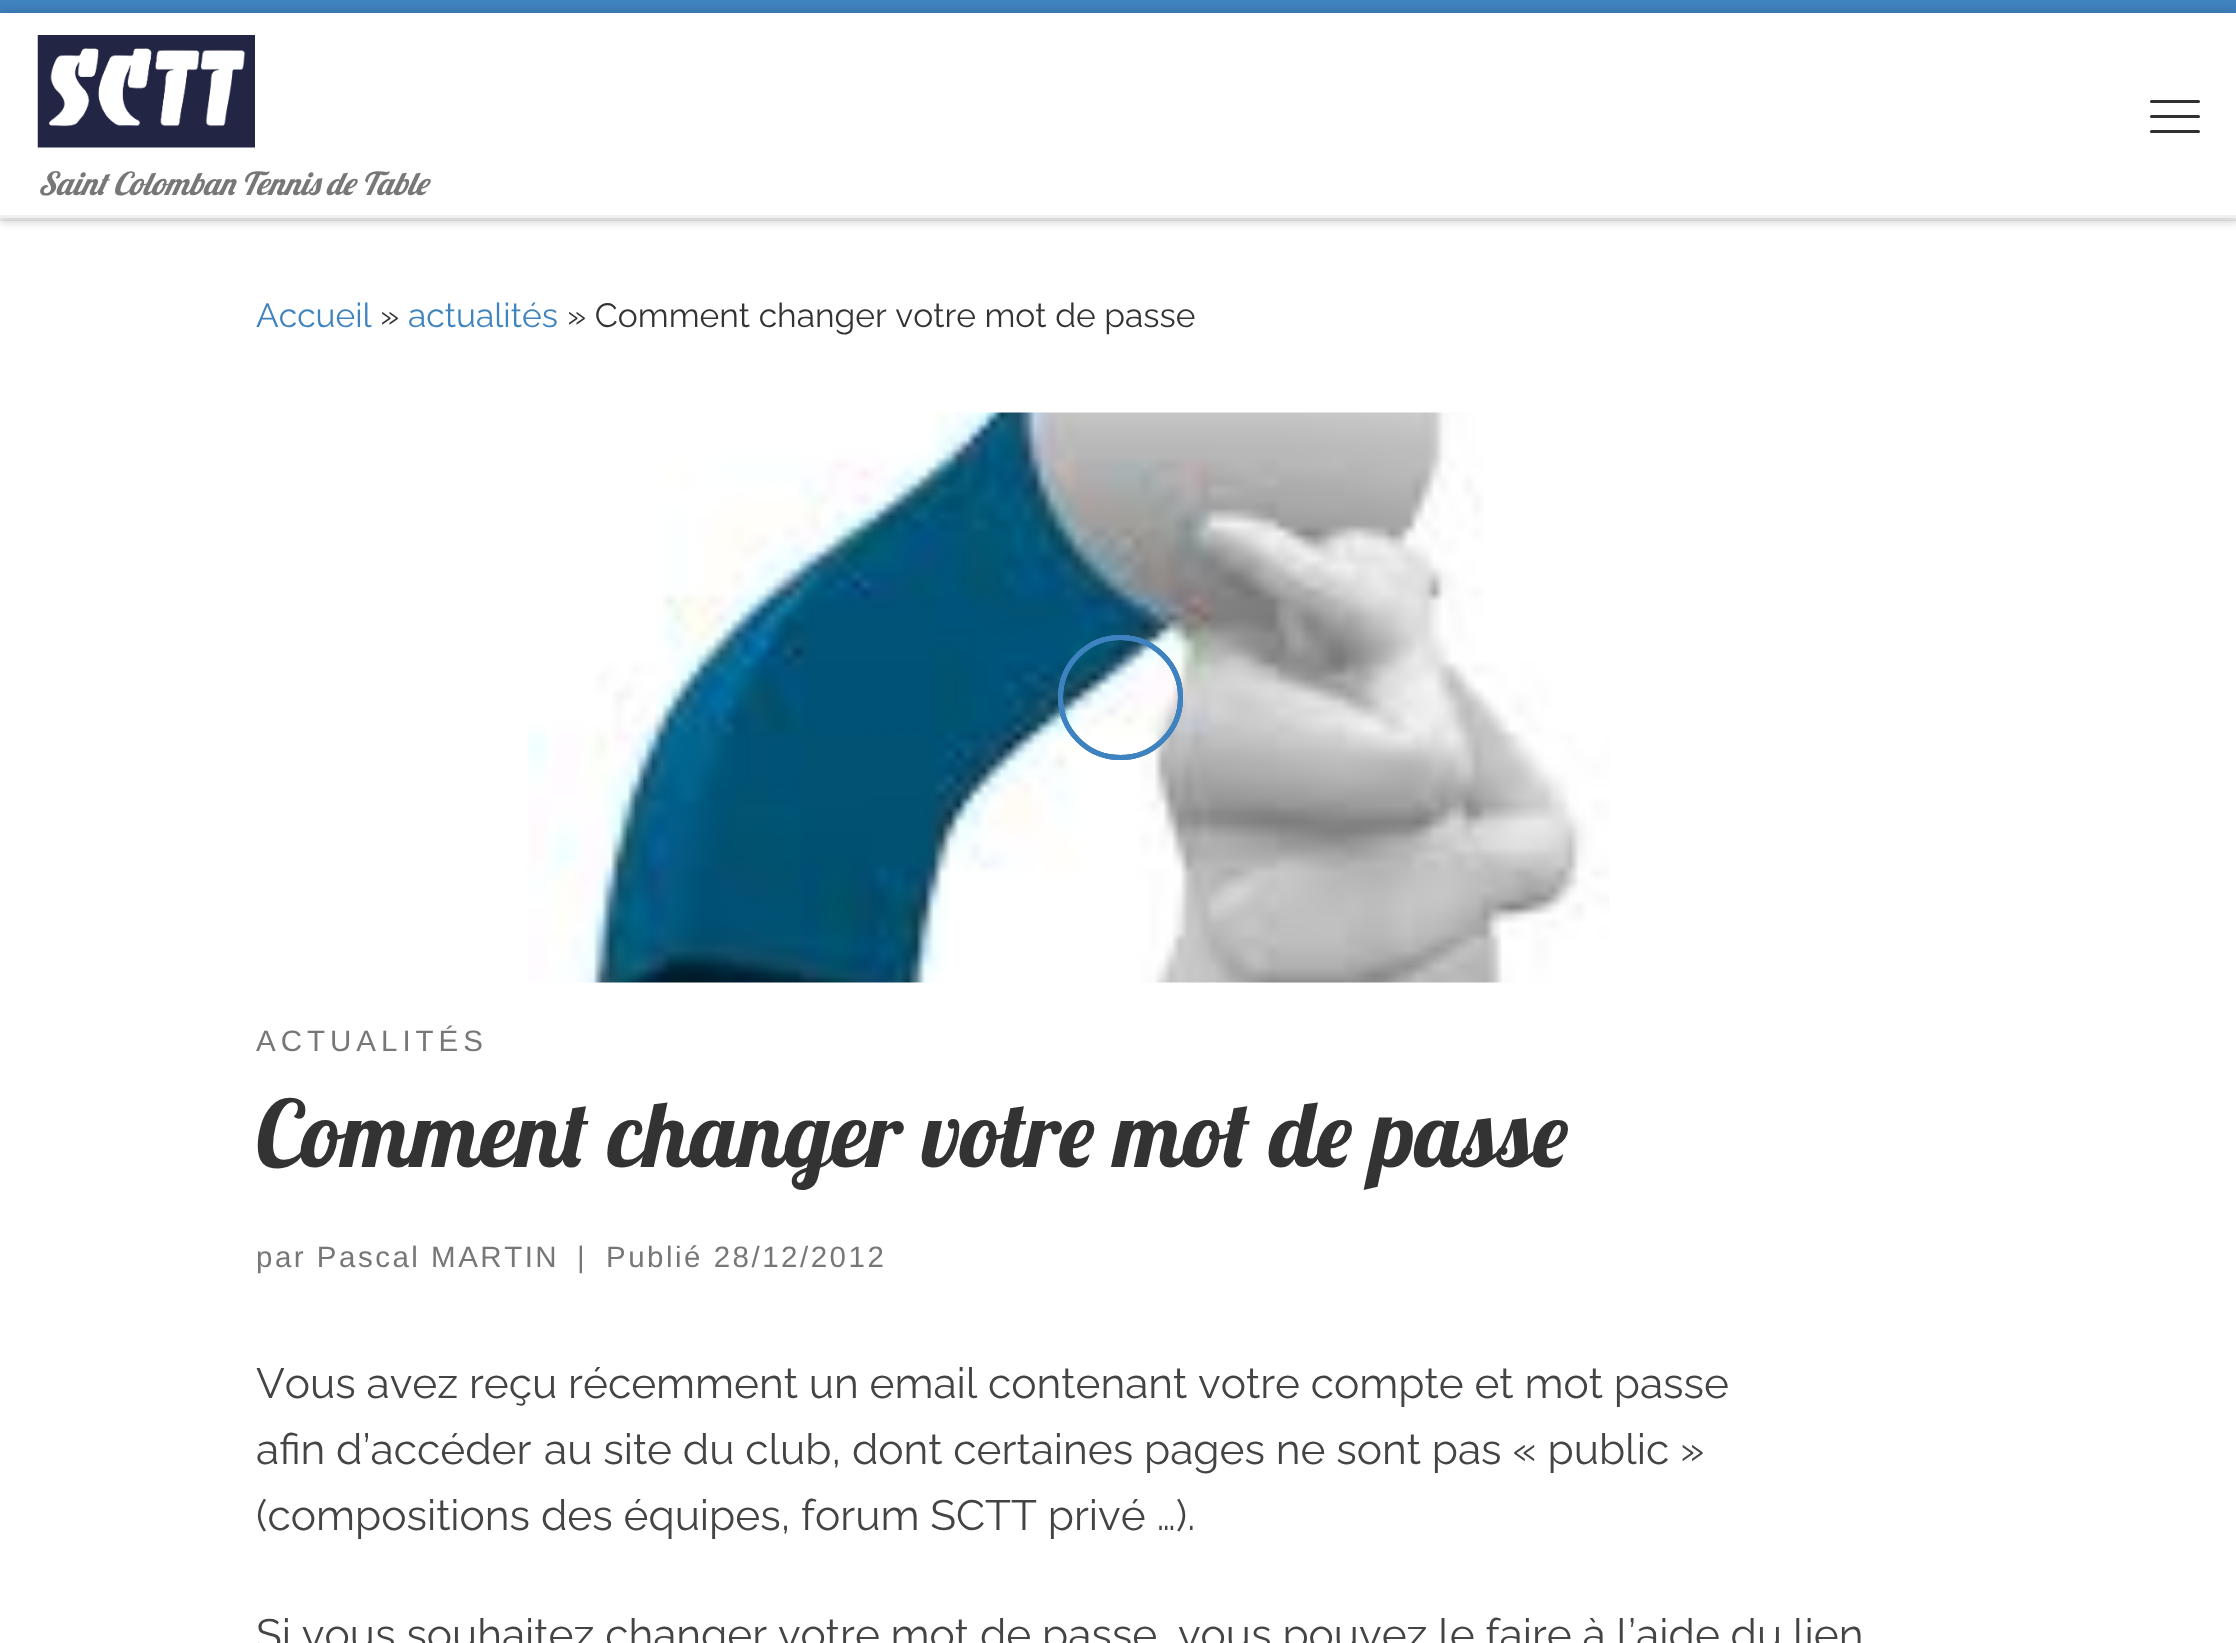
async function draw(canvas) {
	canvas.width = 2236;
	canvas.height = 1643;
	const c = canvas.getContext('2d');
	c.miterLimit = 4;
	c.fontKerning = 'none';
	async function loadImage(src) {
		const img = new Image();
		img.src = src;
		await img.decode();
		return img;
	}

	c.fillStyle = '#fff';
	c.fillRect(0, 0, 2236, 1643);
	c.fillStyle = '#66666614';
	c.filter = 'blur(2.5px)';
	c.beginPath();
	c.rect(0, 5, 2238, 220);
	c.fill();
	c.filter = 'none';
	c.fillStyle = '#3f83bf';
	c.fillRect(0, 0, 2236, 13);
	c.fillStyle = '#31313117';
	c.fillRect(0, 220, 2236, 1);
	c.fillStyle = '#efefef';
	c.beginPath();
	c.moveTo(0, 218);
	c.lineTo(0, 220);
	c.lineTo(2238, 220);
	c.lineTo(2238, 15);
	c.lineTo(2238, 218);
	c.closePath();
	c.fill();
	c.fillStyle = '#00000033';
	c.filter = 'blur(6px)';
	c.beginPath();
	c.rect(0, 13, 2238, 205);
	c.fill();
	c.filter = 'none';
	c.fillStyle = '#fff';
	c.fillRect(0, 13, 2236, 202);
	c.fillStyle = '#313131';
	c.beginPath();
	c.roundRect(2150, 100, 50, 3, 1.5);
	c.fill();
	c.beginPath();
	c.roundRect(2150, 115, 50, 3, 1.5);
	c.fill();
	c.beginPath();
	c.roundRect(2150, 130, 50, 3, 1.5);
	c.fill();
	c.drawImage(await loadImage('img1.png'), 37, 35, 218, 113);
	c.font = 'italic 31.75px Lobster';
	c.fillStyle = '#777';
	c.fillText('Saint Colomban Tennis de Table', 38, 195);
	c.fillStyle = '#f0f0f0';
	c.fillRect(0, 215, 2236, 3);
	c.font = '100 33.6px Raleway';
	c.fillStyle = '#3f83bf';
	c.fillText('Accueil', 256, 327);
	c.fillStyle = '#333';
	c.fillText('»', 380, 327);
	c.fillStyle = '#3f83bf';
	c.fillText('actualités', 408, 327);
	c.fillStyle = '#333';
	c.fillText('» Comment changer votre mot de passe', 567, 327);
	c.drawImage(await loadImage('img2.png'), 526, 412, 1084, 571);
	c.beginPath();
	c.arc(1120.5, 697.5, 60, 0, 2 * Math.PI);
	c.strokeStyle = '#3f83bffc';
	c.lineWidth = 5;
	c.stroke();
	c.beginPath();
	c.arc(1120.5, 697.5, 60, 0, 2 * Math.PI);
	c.stroke();
	c.beginPath();
	c.arc(1120.5, 697.5, 60, 0, 2 * Math.PI);
	c.stroke();
	c.letterSpacing = '5px';
	c.font = '29.5px Liberation Sans';
	c.fillStyle = '#777';
	c.fillText('ACTUALITÉS', 256, 1051);
	c.letterSpacing = '0px';
	c.font = '92.25px Lobster';
	c.fillStyle = '#333';
	c.fillText('Comment changer votre mot de passe', 256, 1167);
	c.letterSpacing = '2.5px';
	c.font = '29.5px Liberation Sans';
	c.fillStyle = '#777';
	for (const [text, x, y] of [
		['par Pascal MARTIN', 256, 1267],
		['|', 577, 1267],
		['Publié 28/12/2012', 606, 1267],
	]) {
		c.fillText(text, x, y);
	}
	c.letterSpacing = '0px';
	c.font = '100 42.45px Raleway';
	c.fillStyle = '#444';
	for (const [text, x, y] of [
		['Vous avez reçu récemment un email', 256, 1398],
		['contenant votre compte et mot passe', 988, 1398],
		['afin d’accéder', 256, 1464],
		['au site du club, dont certaines pages ne sont pas « public »', 544, 1464],
		['(compositions des équipes, forum SCTT privé …).', 256, 1530],
		['Si vous souhaitez changer votre mot de passe,', 256, 1649],
		['vous pouvez le faire à l’aide du lien', 1178, 1649],
	]) {
		c.fillText(text, x, y);
	}
}

draw(document.querySelector('canvas'));
